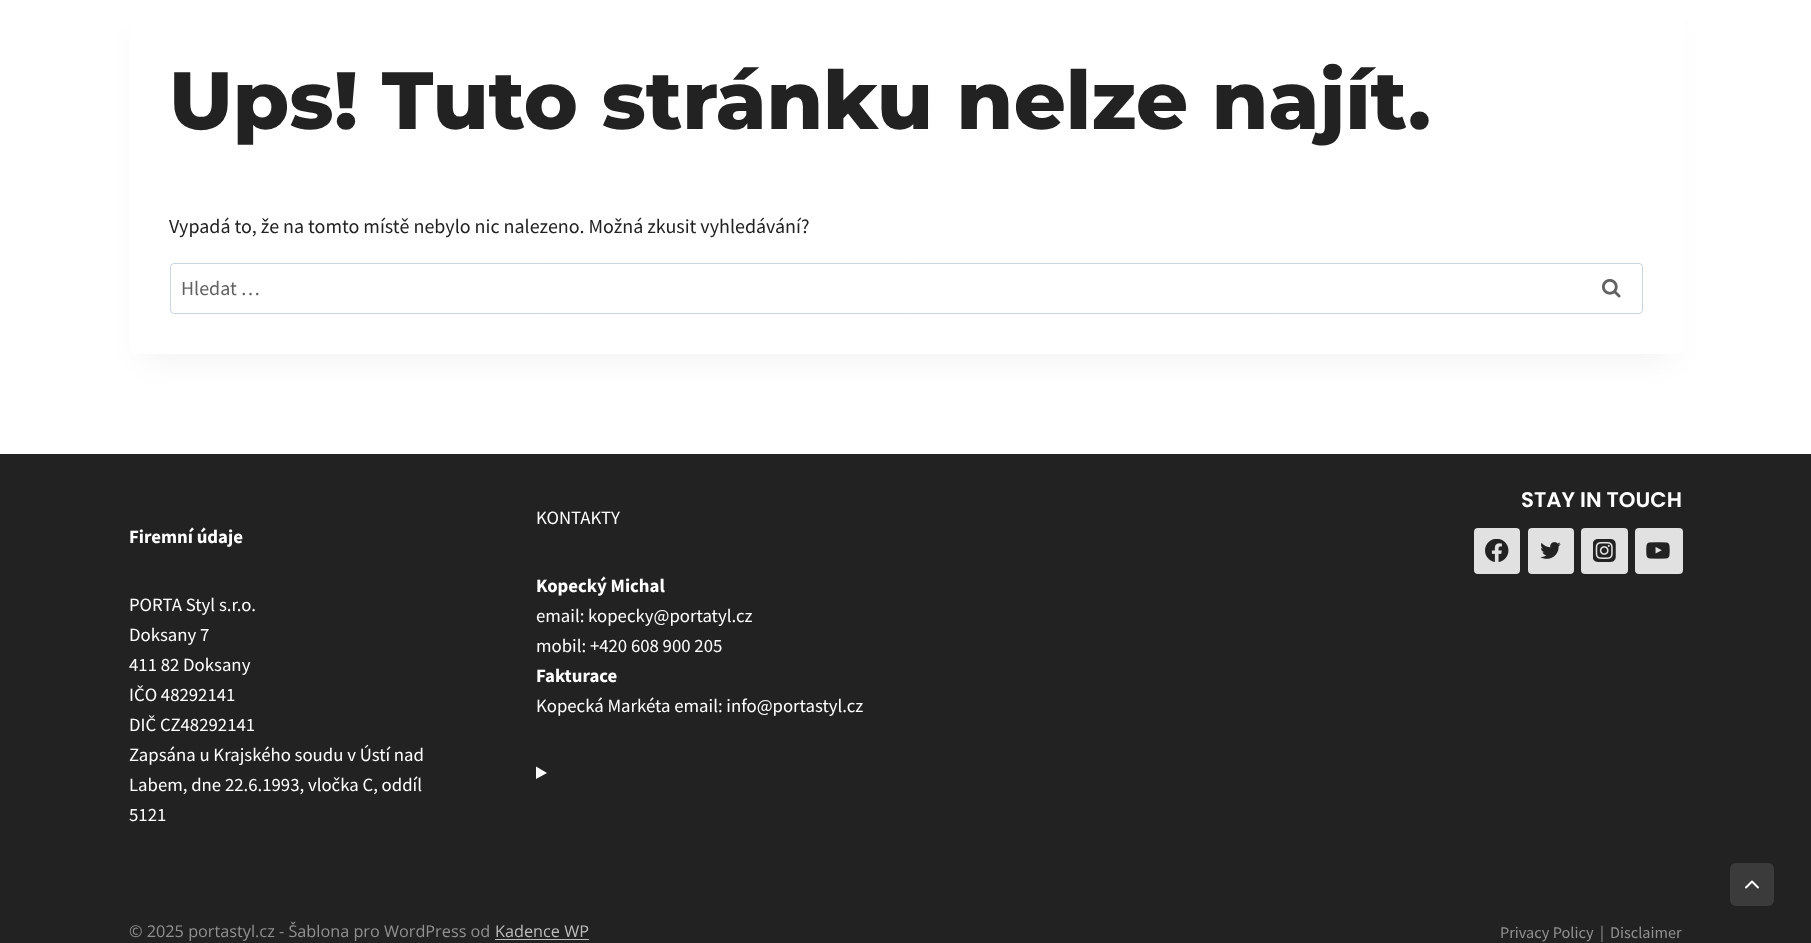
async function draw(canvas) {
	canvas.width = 1811;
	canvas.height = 943;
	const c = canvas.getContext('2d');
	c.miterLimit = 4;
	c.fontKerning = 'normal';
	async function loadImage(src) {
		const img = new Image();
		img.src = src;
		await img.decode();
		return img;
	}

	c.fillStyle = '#fff';
	c.fillRect(0, 0, 1811, 943);
	c.fillStyle = '#0000000d';
	c.filter = 'blur(15.5px)';
	c.beginPath();
	c.rect(143, 30, 1527, 330);
	c.fill();
	c.filter = 'none';
	c.fillStyle = '#fff';
	c.beginPath();
	c.roundRect(130, -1, 1553, 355, 5);
	c.fill();
	c.font = '800 81.25px Montserrat';
	c.fillStyle = '#222';
	c.fillText('Ups! Tuto stránku nelze najít.', 169, 129);
	c.font = '20px Source Sans Pro';
	c.fillText('Vypadá to, že na tomto místě nebylo nic nalezeno. Možná zkusit vyhledávání?', 169, 233);
	c.beginPath();
	c.roundRect(170.5, 263.5, 1472, 50, 3.5);
	c.strokeStyle = '#cbd5e0';
	c.stroke();
	c.fillStyle = '#626262';
	c.fillText('Hledat …', 181, 295);
	c.drawImage(await loadImage('img1.png'), 1602, 278, 19, 20);
	c.fillStyle = '#222';
	c.fillRect(0, 454, 1811, 489);
	c.font = '600 21.25px Poppins';
	c.fillStyle = '#fff';
	c.fillText('STAY IN TOUCH', 1521, 507);
	c.fillStyle = '#e1e1e1';
	c.beginPath();
	c.roundRect(1474, 528, 46, 46, 4);
	c.fill();
	c.drawImage(await loadImage('img2.png'), 1485, 539, 24, 23);
	c.beginPath();
	c.roundRect(1528, 528, 46, 46, 4);
	c.fill();
	c.drawImage(await loadImage('img3.png'), 1540, 542, 21, 17);
	c.beginPath();
	c.roundRect(1581, 528, 47, 46, 4);
	c.fill();
	c.drawImage(await loadImage('img4.png'), 1593, 539, 23, 23);
	c.beginPath();
	c.roundRect(1635, 528, 48, 46, 4);
	c.fill();
	c.drawImage(await loadImage('img5.png'), 1646, 542, 24, 17);
	c.font = 'bold 18.75px Source Sans Pro';
	c.fillStyle = '#fff';
	c.fillText('Firemní údaje', 129, 543);
	c.font = '18.75px Source Sans Pro';
	for (const [text, x, y] of [
		['PORTA Styl s.r.o.', 129, 611],
		['Doksany 7', 129, 641],
		['411 82 Doksany', 129, 671],
		['IČO 48292141', 129, 701],
		['DIČ CZ48292141', 129, 731],
		['Zapsána u Krajského soudu v Ústí nad', 129, 761],
		['Labem, dne 22.6.1993, vločka C, oddíl', 129, 791],
		['5121', 129, 821],
		['KONTAKTY', 536, 524],
	]) {
		c.fillText(text, x, y);
	}
	c.font = 'bold 18.75px Source Sans Pro';
	c.fillText('Kopecký Michal', 536, 592);
	c.font = '18.75px Source Sans Pro';
	c.fillText('email: kopecky@portatyl.cz', 536, 622);
	c.fillText('mobil: +420 608 900 205', 536, 652);
	c.font = 'bold 18.75px Source Sans Pro';
	c.fillText('Fakturace', 536, 682);
	c.font = '18.75px Source Sans Pro';
	c.fillText('Kopecká Markéta email: info@portastyl.cz', 536, 712);
	c.beginPath();
	c.moveTo(536, 766.5);
	c.lineTo(547, 773);
	c.lineTo(536, 779);
	c.closePath();
	c.fill();
	c.font = '16.25px Open Sans';
	c.fillStyle = '#919191';
	c.fillText('© 2025 portastyl.cz - Šablona pro WordPress od', 129, 937);
	c.fillStyle = '#bdbdbd';
	c.fillText('Kadence WP', 495, 937);
	c.fillRect(495, 939, 94, 1);
	c.font = '16.25px Source Sans Pro';
	c.fillStyle = '#919191';
	for (const [text, x, y] of [
		['Privacy Policy', 1500, 938],
		['|', 1600, 938],
		['Disclaimer', 1610, 938],
	]) {
		c.fillText(text, x, y);
	}
	c.fillStyle = '#3b3b3b';
	c.beginPath();
	c.roundRect(1730, 863, 44, 43, 6);
	c.fill();
	c.drawImage(await loadImage('img6.png'), 1745, 880, 14, 9);
}

draw(document.querySelector('canvas'));
